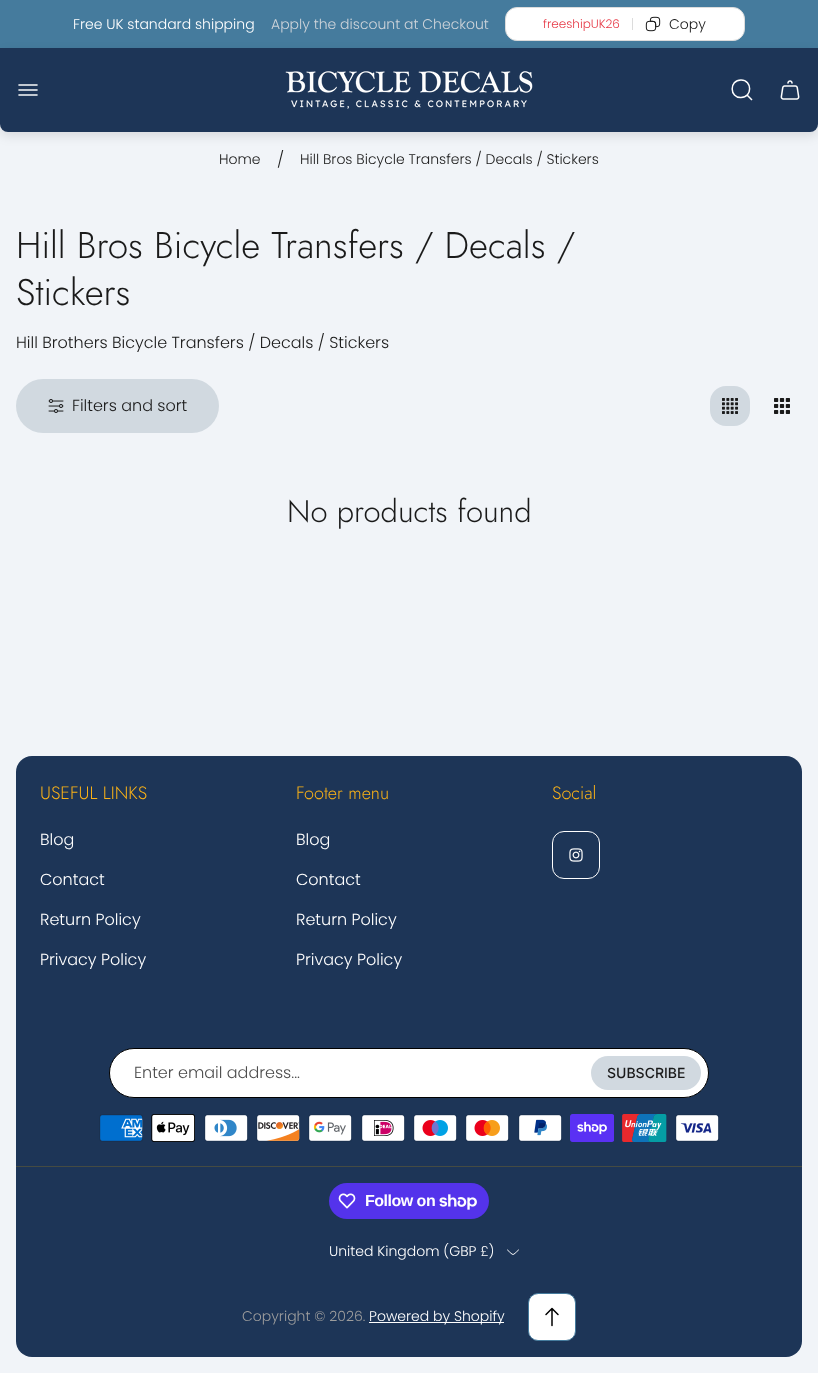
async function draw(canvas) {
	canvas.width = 818;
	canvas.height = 1373;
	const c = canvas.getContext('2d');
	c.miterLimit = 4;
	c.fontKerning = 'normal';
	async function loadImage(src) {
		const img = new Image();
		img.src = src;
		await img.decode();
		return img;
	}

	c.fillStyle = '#f1f4f8';
	c.fillRect(0, 0, 818, 1373);
	c.fillStyle = '#457b9d';
	c.fillRect(0, 0, 818, 48);
	c.font = '300 14px Poppins';
	c.fillStyle = '#fff';
	c.fillText('Free UK standard shipping', 73, 29);
	c.fillStyle = '#ced4da';
	c.fillText('Apply the discount at Checkout', 271, 29);
	c.fillStyle = '#0000001a';
	c.filter = 'blur(5.5px)';
	c.beginPath();
	c.roundRect(0, 52, 818, 84, 8);
	c.fill();
	c.filter = 'none';
	c.fillStyle = '#fff';
	c.beginPath();
	c.roundRect(505.5, 7.5, 239, 33, 11.5);
	c.fill();
	c.strokeStyle = '#dcdcdc';
	c.stroke();
	c.font = '300 12px Poppins';
	c.fillStyle = '#e63946';
	c.fillText('freeshipUK26', 543, 28);
	c.fillStyle = '#dcdcdc';
	c.fillRect(632, 18, 1, 12);
	c.drawImage(await loadImage('img1.png'), 645, 16, 16, 16);
	c.font = '300 14px Poppins';
	c.fillStyle = '#1a1a1a';
	c.fillText('Copy', 669, 29);
	c.fillStyle = '#1d3557';
	c.beginPath();
	c.roundRect(0, 48, 818, 84, [0, 0, 8, 8]);
	c.fill();
	c.drawImage(await loadImage('img2.png'), 18, 84, 20, 12);
	c.drawImage(await loadImage('img3.png'), 285, 71, 248, 38);
	c.beginPath();
	c.moveTo(747, 95);
	c.lineTo(752, 100);
	c.moveTo(741, 80);
	c.bezierCurveTo(752.5, 80, 752.5, 97.5, 741, 97.5);
	c.bezierCurveTo(729.5, 98, 729, 80, 741, 80);
	c.closePath();
	c.strokeStyle = '#fff';
	c.lineWidth = 1.5;
	c.stroke();
	c.drawImage(await loadImage('img4.png'), 780, 80, 20, 20);
	c.fillStyle = '#1a1a1a';
	c.fillText('Home', 219, 164);
	c.font = '300 16px Poppins';
	c.fillText('/', 277, 165);
	c.font = '300 14px Poppins';
	c.fillText('Hill Bros Bicycle Transfers / Decals / Stickers', 300, 164);
	c.font = '300 37px Jost';
	c.fillText('Hill Bros Bicycle Transfers / Decals /', 16, 258);
	c.fillText('Stickers', 16, 305);
	c.font = '300 16px Poppins';
	c.fillText('Hill Brothers Bicycle Transfers / Decals / Stickers', 16, 348);
	c.fillStyle = '#d1d9e0';
	c.beginPath();
	c.roundRect(16, 379, 203, 54, 27);
	c.fill();
	c.drawImage(await loadImage('img5.png'), 48, 399, 16, 14);
	c.fillStyle = '#1a1a1a';
	c.fillText('Filters and sort', 72, 411);
	c.fillStyle = '#d1d9e0';
	c.beginPath();
	c.roundRect(710, 386, 40, 40, 16);
	c.fill();
	c.drawImage(await loadImage('img6.png'), 722, 398, 16, 16);
	c.drawImage(await loadImage('img7.png'), 774, 398, 16, 16);
	c.font = '300 31px Jost';
	c.fillStyle = '#1a1a1a';
	c.fillText('No products found', 287, 522);
	c.fillStyle = '#1d3557';
	c.beginPath();
	c.roundRect(16, 756, 786, 601, 16);
	c.fill();
	c.font = '300 18px Jost';
	c.fillStyle = '#fab217';
	c.fillText('USEFUL LINKS', 40, 799);
	c.font = '300 16px Poppins';
	c.fillStyle = '#fff';
	for (const [text, x, y] of [
		['Blog', 40, 845],
		['Contact', 40, 885],
		['Return Policy', 40, 925],
		['Privacy Policy', 40, 965],
	]) {
		c.fillText(text, x, y);
	}
	c.font = '300 18px Jost';
	c.fillStyle = '#fab217';
	c.fillText('Footer menu', 296, 799);
	c.font = '300 16px Poppins';
	c.fillStyle = '#fff';
	for (const [text, x, y] of [
		['Blog', 296, 845],
		['Contact', 296, 885],
		['Return Policy', 296, 925],
		['Privacy Policy', 296, 965],
	]) {
		c.fillText(text, x, y);
	}
	c.font = '300 18px Jost';
	c.fillStyle = '#fab217';
	c.fillText('Social', 552, 799);
	c.beginPath();
	c.roundRect(552.5, 831.5, 47, 47, 11.5);
	c.lineWidth = 1;
	c.stroke();
	c.drawImage(await loadImage('img8.png'), 569, 848, 14, 14);
	c.fillStyle = '#fff';
	c.beginPath();
	c.roundRect(109.5, 1048.5, 599, 49, 24.5);
	c.fill();
	c.strokeStyle = '#000';
	c.stroke();
	c.font = '300 16px Poppins';
	c.fillStyle = '#4d4d4d';
	c.fillText('Enter email address...', 134, 1078);
	c.fillStyle = '#d1d9e0';
	c.beginPath();
	c.roundRect(591, 1056, 110, 34, 17);
	c.fill();
	c.font = '500 14px Inter';
	c.fillStyle = '#1a1a1a';
	c.fillText('SUBSCRIBE', 607, 1078);
	c.drawImage(await loadImage('img9.png'), 99, 1114, 44, 28);
	c.drawImage(await loadImage('img10.png'), 151, 1114, 44, 28);
	c.drawImage(await loadImage('img11.png'), 204, 1114, 44, 28);
	c.drawImage(await loadImage('img12.png'), 256, 1114, 44, 28);
	c.drawImage(await loadImage('img13.png'), 308, 1114, 44, 28);
	c.drawImage(await loadImage('img14.png'), 361, 1114, 44, 28);
	c.drawImage(await loadImage('img15.png'), 413, 1114, 44, 28);
	c.drawImage(await loadImage('img16.png'), 465, 1114, 44, 28);
	c.drawImage(await loadImage('img17.png'), 518, 1114, 44, 28);
	c.drawImage(await loadImage('img18.png'), 570, 1114, 44, 28);
	c.drawImage(await loadImage('img19.png'), 622, 1114, 45, 28);
	c.drawImage(await loadImage('img20.png'), 675, 1114, 44, 28);
	c.fillStyle = '#454b42';
	c.fillRect(16, 1166, 786, 1);
	c.fillStyle = '#5433eb';
	c.beginPath();
	c.roundRect(329, 1183, 160, 36, 18);
	c.fill();
	c.drawImage(await loadImage('img21.png'), 338, 1193, 18, 16);
	c.letterSpacing = '-0.5px';
	c.font = 'bold 16px Liberation Sans';
	c.fillStyle = '#fff';
	c.fillText('Follow on', 365, 1206);
	c.drawImage(await loadImage('img22.png'), 439, 1194, 38, 16);
	c.letterSpacing = '0px';
	c.font = '300 14px Poppins';
	c.fillText('United Kingdom (GBP £)', 329, 1256);
	c.beginPath();
	c.moveTo(518.5, 1250);
	c.bezierCurveTo(512, 1256, 514, 1256, 507.5, 1250);
	c.strokeStyle = '#fff';
	c.lineCap = 'round';
	c.lineJoin = 'round';
	c.stroke();
	c.fillStyle = '#9d9d9d';
	c.fillText('Copyright © 2026.', 242, 1321);
	c.fillStyle = '#fff';
	c.fillRect(369, 1322, 135, 1);
	c.fillText('Powered by Shopify', 369, 1321);
	c.beginPath();
	c.roundRect(528.5, 1293.5, 47, 47, 9.5);
	c.fill();
	c.strokeStyle = '#457b9d';
	c.lineJoin = 'miter';
	c.stroke();
	c.beginPath();
	c.moveTo(558, 1314.5);
	c.lineTo(552, 1308.5);
	c.lineTo(546, 1314.5);
	c.moveTo(552, 1325.5);
	c.lineTo(552, 1308.5);
	c.strokeStyle = '#000';
	c.lineWidth = 1.5;
	c.lineJoin = 'round';
	c.stroke();
}

draw(document.querySelector('canvas'));
